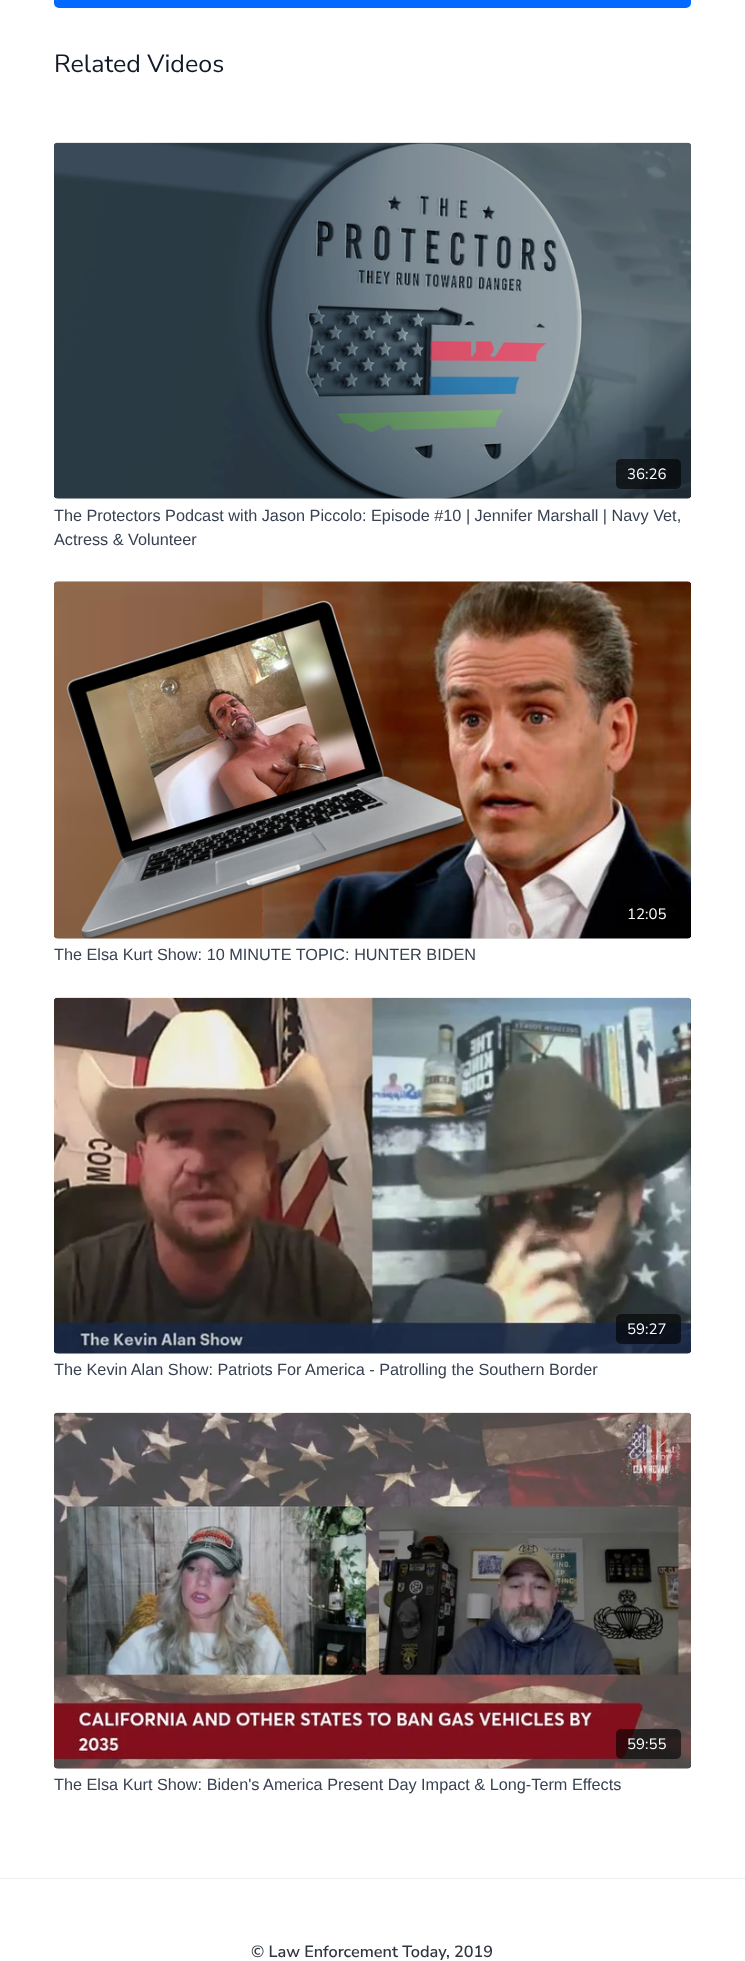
async function draw(canvas) {
	canvas.width = 745;
	canvas.height = 1961;
	const c = canvas.getContext('2d');
	c.miterLimit = 4;
	c.fontKerning = 'normal';
	async function loadImage(src) {
		const img = new Image();
		img.src = src;
		await img.decode();
		return img;
	}
	let gradient;

	c.fillStyle = '#fff';
	c.fillRect(0, 0, 745, 1961);
	c.fillStyle = '#006aff';
	c.beginPath();
	c.roundRect(54, -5, 637, 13, 5);
	c.fill();
	c.font = '25px Nunito Sans';
	c.fillStyle = '#111827';
	c.fillText('Related Videos', 54, 72);
	gradient = c.createLinearGradient(54, 321, 691, 321);
	gradient.addColorStop(0.08, '#dedede');
	gradient.addColorStop(0.18, '#e1e1e1');
	gradient.addColorStop(0.33, '#e4e4e4');
	c.fillStyle = gradient;
	c.beginPath();
	c.roundRect(54, 143, 637, 356, 5);
	c.fill();
	c.drawImage(await loadImage('img1.png'), 54, 142, 637, 357);
	c.fillStyle = '#00000099';
	c.beginPath();
	c.roundRect(616, 459, 65, 30, 5);
	c.fill();
	c.font = '15px Nunito Sans';
	c.fillStyle = '#fff';
	c.fillText('36:26', 627, 479);
	c.font = '16.25px Liberation Sans';
	c.fillStyle = '#374151';
	c.fillText('The Protectors Podcast with Jason Piccolo: Episode #10 | Jennifer Marshall | Navy Vet,', 54, 521);
	c.fillText('Actress & Volunteer', 54, 545);
	gradient = c.createLinearGradient(54, 760, 691, 760);
	gradient.addColorStop(0.08, '#dedede');
	gradient.addColorStop(0.18, '#e1e1e1');
	gradient.addColorStop(0.33, '#e4e4e4');
	c.fillStyle = gradient;
	c.beginPath();
	c.roundRect(54, 581, 637, 358, 5);
	c.fill();
	c.drawImage(await loadImage('img2.png'), 54, 581, 637, 358);
	c.fillStyle = '#00000099';
	c.beginPath();
	c.roundRect(616, 899, 65, 30, 5);
	c.fill();
	c.font = '15px Nunito Sans';
	c.fillStyle = '#fff';
	c.fillText('12:05', 627, 919);
	c.font = '16.25px Liberation Sans';
	c.fillStyle = '#374151';
	c.fillText('The Elsa Kurt Show: 10 MINUTE TOPIC: HUNTER BIDEN', 54, 960);
	gradient = c.createLinearGradient(54, 1176, 691, 1176);
	gradient.addColorStop(0.08, '#dedede');
	gradient.addColorStop(0.18, '#e1e1e1');
	gradient.addColorStop(0.33, '#e4e4e4');
	c.fillStyle = gradient;
	c.beginPath();
	c.roundRect(54, 998, 637, 356, 5);
	c.fill();
	c.drawImage(await loadImage('img3.png'), 54, 997, 637, 357);
	c.fillStyle = '#00000099';
	c.beginPath();
	c.roundRect(616, 1314, 65, 30, 5);
	c.fill();
	c.font = '15px Nunito Sans';
	c.fillStyle = '#fff';
	c.fillText('59:27', 627, 1334);
	c.font = '16.25px Liberation Sans';
	c.fillStyle = '#374151';
	c.fillText('The Kevin Alan Show: Patriots For America - Patrolling the Southern Border', 54, 1375);
	gradient = c.createLinearGradient(54, 1591, 691, 1591);
	gradient.addColorStop(0.08, '#dedede');
	gradient.addColorStop(0.18, '#e1e1e1');
	gradient.addColorStop(0.33, '#e4e4e4');
	c.fillStyle = gradient;
	c.beginPath();
	c.roundRect(54, 1413, 637, 356, 5);
	c.fill();
	c.drawImage(await loadImage('img4.png'), 54, 1412, 637, 357);
	c.fillStyle = '#00000099';
	c.beginPath();
	c.roundRect(616, 1729, 65, 30, 5);
	c.fill();
	c.font = '15px Nunito Sans';
	c.fillStyle = '#fff';
	c.fillText('59:55', 627, 1749);
	c.font = '16.25px Liberation Sans';
	c.fillStyle = '#374151';
	c.fillText('The Elsa Kurt Show: Biden\'s America Present Day Impact & Long-Term Effects', 54, 1790);
	c.fillStyle = '#ebeef3';
	c.fillRect(0, 1878, 745, 1);
	c.font = '600 16.25px Nunito Sans';
	c.fillStyle = '#30363e';
	c.fillText('© Law Enforcement Today, 2019', 251, 1957);
}

draw(document.querySelector('canvas'));
